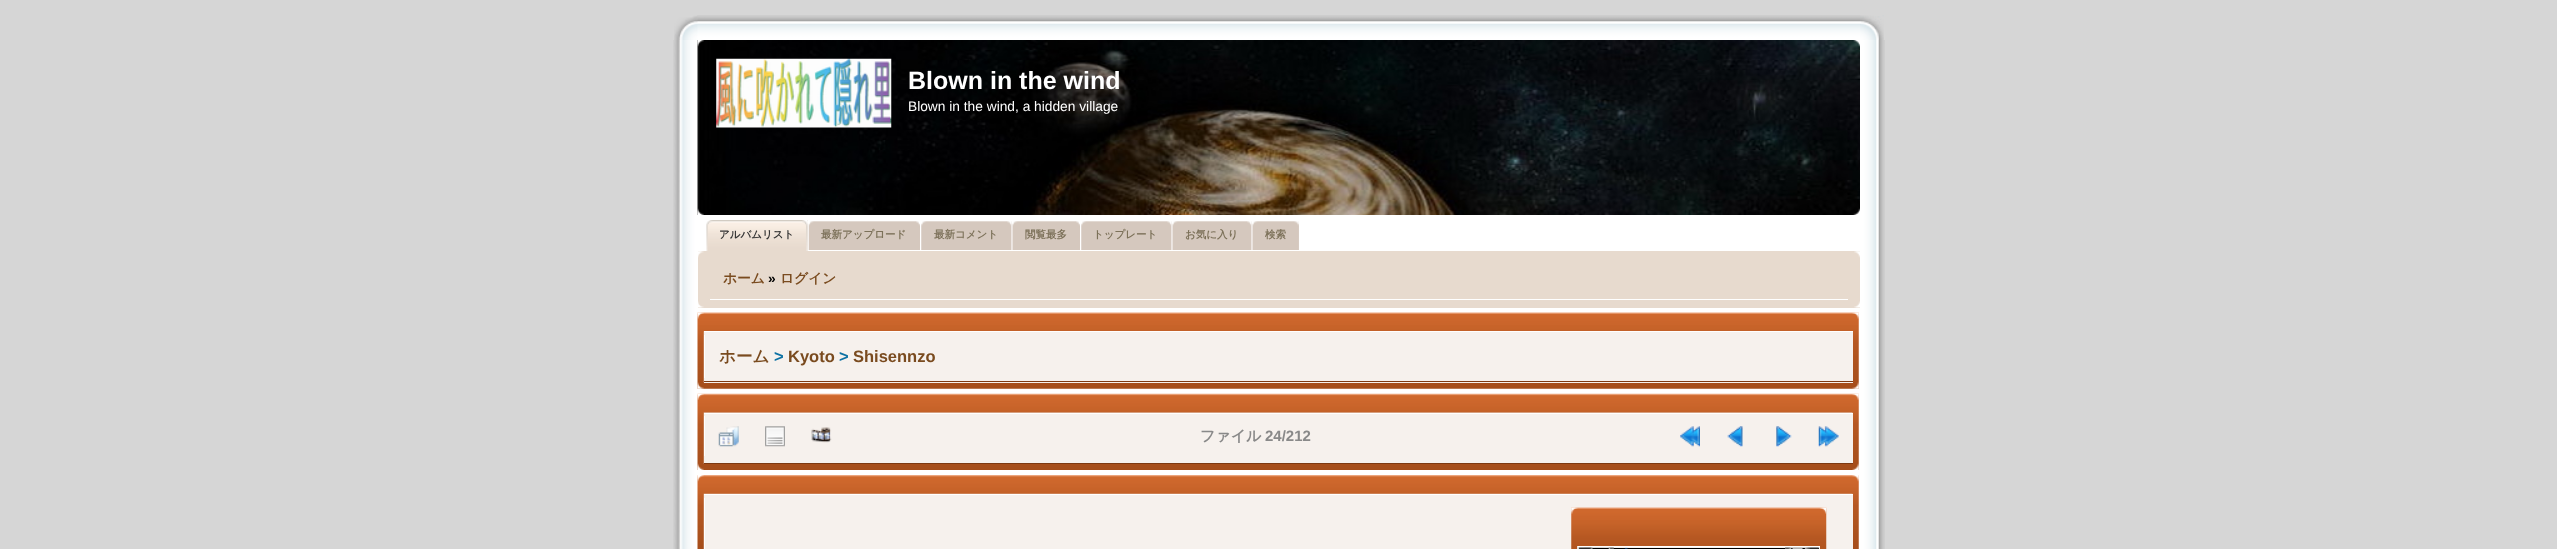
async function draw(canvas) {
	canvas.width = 2557;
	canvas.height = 549;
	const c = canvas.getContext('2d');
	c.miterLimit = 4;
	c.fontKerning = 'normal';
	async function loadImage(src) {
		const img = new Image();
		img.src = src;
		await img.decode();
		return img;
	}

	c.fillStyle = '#d6d6d6';
	c.fillRect(0, 0, 2557, 549);
	c.drawImage(await loadImage('img1.png'), 674, 15, 24, 25);
	c.drawImage(await loadImage('img2.png'), 697, 15, 1163, 25);
	c.drawImage(await loadImage('img3.png'), 1860, 15, 24, 25);
	c.drawImage(await loadImage('img4.png'), 673, 40, 1212, 509);
	c.drawImage(await loadImage('img5.png'), 697, 40, 1163, 175);
	c.drawImage(await loadImage('img6.png'), 697, 40, 8, 7);
	c.drawImage(await loadImage('img7.png'), 1853, 40, 7, 7);
	c.drawImage(await loadImage('img8.png'), 716, 58, 176, 70);
	c.font = 'bold 25px Liberation Sans';
	c.fillStyle = '#fff';
	c.fillText('Blown in the wind', 908, 89);
	c.font = '13.75px Liberation Sans';
	c.fillText('Blown in the wind, a hidden village', 908, 111);
	c.drawImage(await loadImage('img9.png'), 697, 208, 7, 7);
	c.drawImage(await loadImage('img10.png'), 1853, 208, 7, 7);
	c.drawImage(await loadImage('img11.png'), 706, 220, 102, 31);
	c.drawImage(await loadImage('img12.png'), 802, 220, 6, 31);
	c.font = 'bold 10.5px WenQuanYi Zen Hei';
	c.fillStyle = '#333';
	c.fillText('アルバムリスト', 719, 238);
	c.drawImage(await loadImage('img13.png'), 808, 221, 112, 29);
	c.drawImage(await loadImage('img14.png'), 916, 221, 4, 5);
	c.fillStyle = '#7c7159';
	c.fillText('最新アップロード', 821, 238);
	c.drawImage(await loadImage('img15.png'), 921, 221, 91, 29);
	c.drawImage(await loadImage('img16.png'), 1007, 221, 5, 29);
	c.fillText('最新コメント', 934, 238);
	c.drawImage(await loadImage('img17.png'), 1012, 221, 68, 29);
	c.drawImage(await loadImage('img14.png'), 1076, 221, 4, 5);
	c.fillText('閲覧最多', 1025, 238);
	c.drawImage(await loadImage('img18.png'), 1081, 221, 91, 29);
	c.drawImage(await loadImage('img16.png'), 1167, 221, 5, 29);
	c.fillText('トップレート', 1093, 238);
	c.drawImage(await loadImage('img19.png'), 1172, 221, 80, 29);
	c.drawImage(await loadImage('img20.png'), 1247, 221, 5, 29);
	c.fillText('お気に入り', 1185, 238);
	c.drawImage(await loadImage('img21.png'), 1252, 221, 47, 29);
	c.drawImage(await loadImage('img22.png'), 1294, 221, 5, 29);
	c.fillText('検索', 1265, 238);
	c.fillStyle = '#e7dace';
	c.fillRect(698, 251, 1162, 57);
	c.drawImage(await loadImage('img23.png'), 698, 251, 6, 7);
	c.drawImage(await loadImage('img24.png'), 1854, 251, 6, 7);
	c.fillStyle = '#fff';
	c.fillRect(710, 299, 1138, 1);
	c.font = 'bold 13.75px WenQuanYi Zen Hei';
	c.fillStyle = '#7a4b1f';
	c.fillText('ホーム', 723, 283);
	c.font = 'bold 13.75px Liberation Sans';
	c.fillStyle = '#000';
	c.fillText('»', 768, 283);
	c.font = 'bold 13.75px WenQuanYi Zen Hei';
	c.fillStyle = '#7a4b1f';
	c.fillText('ログイン', 780, 283);
	c.drawImage(await loadImage('img25.png'), 698, 301, 6, 7);
	c.drawImage(await loadImage('img26.png'), 1854, 301, 6, 7);
	c.drawImage(await loadImage('img27.png'), 697, 312, 1162, 77);
	c.drawImage(await loadImage('img28.png'), 697, 312, 7, 7);
	c.drawImage(await loadImage('img29.png'), 1852, 312, 7, 7);
	c.drawImage(await loadImage('img30.png'), 703, 331, 1, 52);
	for (const [x, y, w, h, color] of [
		[704, 332, 1149, 51, '#f6f1ed'],
		[704, 331, 1149, 1, '#fff'],
		[704, 381, 1149, 1, '#7d3912'],
		[704, 335, 1, 43, '#fff'],
	]) {
		c.fillStyle = color;
		c.fillRect(x, y, w, h);
	}
	c.font = 'bold 16.5px WenQuanYi Zen Hei';
	c.fillStyle = '#7a4b1f';
	c.fillText('ホーム', 719, 362);
	c.font = 'bold 16.5px Liberation Sans';
	c.fillStyle = '#0e72a4';
	c.fillText('>', 774, 362);
	c.fillStyle = '#7a4b1f';
	c.fillText('Kyoto', 788, 362);
	c.fillStyle = '#0e72a4';
	c.fillText('>', 839, 362);
	c.fillStyle = '#7a4b1f';
	c.fillText('Shisennzo', 853, 362);
	c.drawImage(await loadImage('img31.png'), 697, 382, 7, 7);
	c.drawImage(await loadImage('img32.png'), 1852, 382, 7, 7);
	c.drawImage(await loadImage('img33.png'), 697, 393, 1162, 77);
	c.drawImage(await loadImage('img34.png'), 697, 393, 7, 7);
	c.drawImage(await loadImage('img35.png'), 1852, 393, 7, 7);
	c.drawImage(await loadImage('img36.png'), 703, 412, 1150, 52);
	for (const [x, y, w, h, color] of [
		[704, 414, 1149, 49, '#f6f1ed'],
		[704, 413, 1149, 1, '#fff'],
		[704, 463, 1149, 1, '#7d3912'],
		[704, 416, 1, 40, '#fff'],
	]) {
		c.fillStyle = color;
		c.fillRect(x, y, w, h);
	}
	c.drawImage(await loadImage('img37.png'), 718, 426, 21, 21);
	c.drawImage(await loadImage('img38.png'), 765, 426, 20, 21);
	c.drawImage(await loadImage('img39.png'), 811, 427, 21, 16);
	c.font = 'bold 15px WenQuanYi Zen Hei';
	c.fillStyle = '#898989';
	c.fillText('ファイル', 1200, 441);
	c.font = 'bold 15px Liberation Sans';
	c.fillText('24/212', 1265, 441);
	c.drawImage(await loadImage('img40.png'), 1680, 426, 20, 21);
	c.drawImage(await loadImage('img41.png'), 1727, 426, 16, 21);
	c.drawImage(await loadImage('img42.png'), 1776, 426, 16, 21);
	c.drawImage(await loadImage('img43.png'), 1818, 426, 21, 21);
	c.drawImage(await loadImage('img44.png'), 697, 463, 7, 7);
	c.drawImage(await loadImage('img45.png'), 1852, 463, 7, 7);
	c.drawImage(await loadImage('img46.png'), 697, 475, 1162, 74);
	c.drawImage(await loadImage('img47.png'), 697, 475, 7, 7);
	c.drawImage(await loadImage('img48.png'), 1852, 475, 7, 7);
	c.drawImage(await loadImage('img49.png'), 703, 493, 1150, 56);
	for (const [x, y, w, h, color] of [
		[704, 495, 1149, 54, '#f6f1ed'],
		[704, 494, 1149, 1, '#fff'],
		[704, 498, 1, 51, '#fff'],
	]) {
		c.fillStyle = color;
		c.fillRect(x, y, w, h);
	}
	c.drawImage(await loadImage('img50.png'), 1571, 507, 256, 42);
	c.drawImage(await loadImage('img51.png'), 1571, 507, 7, 7);
	c.drawImage(await loadImage('img52.png'), 1819, 507, 8, 7);
	for (const [x, y, w, h, color] of [
		[1577, 546, 1, 3, '#e8ded5'],
		[1578, 547, 242, 2, '#f6f1ed'],
		[1578, 546, 242, 1, '#fff'],
		[1578, 548, 1, 1, '#fff'],
		[1591, 548, 228, 1, '#000'],
	]) {
		c.fillStyle = color;
		c.fillRect(x, y, w, h);
	}
	c.drawImage(await loadImage('img53.png'), 1578, 547, 36, 2);
	c.drawImage(await loadImage('img54.png'), 1624, 547, 4, 2);
	c.drawImage(await loadImage('img55.png'), 1785, 547, 34, 2);
}

draw(document.querySelector('canvas'));
